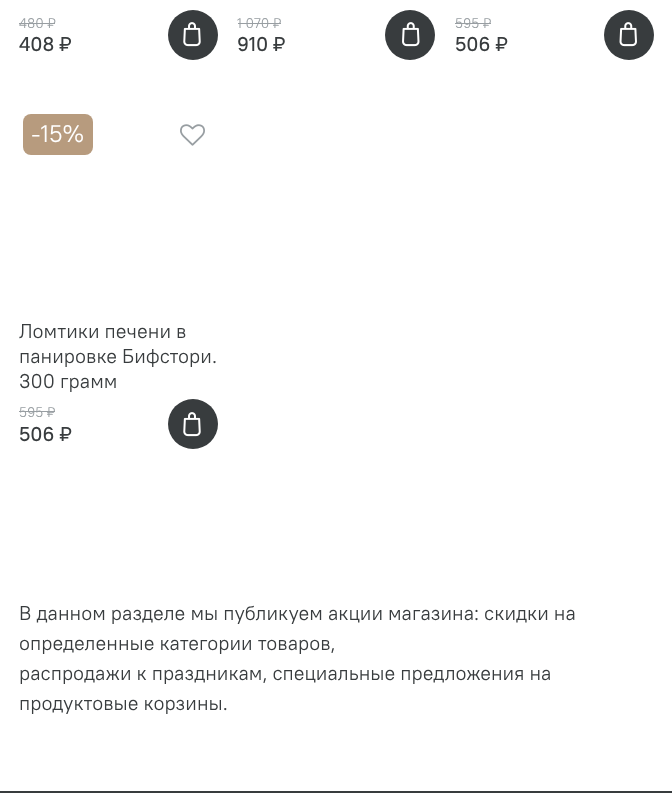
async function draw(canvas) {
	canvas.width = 672;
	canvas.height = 793;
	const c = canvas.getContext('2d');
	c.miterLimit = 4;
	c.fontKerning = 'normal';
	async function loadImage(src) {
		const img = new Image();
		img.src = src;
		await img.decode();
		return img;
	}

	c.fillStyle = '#fff';
	c.fillRect(0, 0, 672, 793);
	c.font = '14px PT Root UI';
	c.fillStyle = '#989ea2';
	c.fillText('480 ₽', 19, 28);
	c.fillRect(19, 23, 36, 1);
	c.font = '500 20px PT Root UI';
	c.fillStyle = '#383c3e';
	c.fillText('408 ₽', 19, 51);
	c.beginPath();
	c.arc(193, 35, 25, 0, 2 * Math.PI);
	c.fill();
	c.drawImage(await loadImage('img1.png'), 183, 22, 18, 25);
	c.font = '14px PT Root UI';
	c.fillStyle = '#989ea2';
	c.fillText('1 070 ₽', 237, 28);
	c.fillRect(238, 23, 43, 1);
	c.font = '500 20px PT Root UI';
	c.fillStyle = '#383c3e';
	c.fillText('910 ₽', 237, 51);
	c.beginPath();
	c.arc(410, 35, 25, 0, 2 * Math.PI);
	c.fill();
	c.drawImage(await loadImage('img2.png'), 402, 22, 18, 25);
	c.font = '14px PT Root UI';
	c.fillStyle = '#989ea2';
	c.fillText('595 ₽', 455, 28);
	c.fillRect(455, 23, 36, 1);
	c.font = '500 20px PT Root UI';
	c.fillStyle = '#383c3e';
	c.fillText('506 ₽', 455, 51);
	c.beginPath();
	c.arc(629, 35, 25, 0, 2 * Math.PI);
	c.fill();
	c.drawImage(await loadImage('img3.png'), 619, 22, 18, 25);
	c.fillStyle = '#b79b7e';
	c.beginPath();
	c.roundRect(23, 114, 70, 41, 8);
	c.fill();
	c.font = '24px PT Root UI';
	c.fillStyle = '#fff';
	c.fillText('-15%', 31, 142);
	c.drawImage(await loadImage('img4.png'), 180, 124, 25, 22);
	c.font = '20px PT Root UI';
	c.fillStyle = '#383c3e';
	for (const [text, x, y] of [
		['Ломтики печени в', 19, 338],
		['панировке Бифстори.', 19, 363],
		['300 грамм', 19, 388],
	]) {
		c.fillText(text, x, y);
	}
	c.font = '14px PT Root UI';
	c.fillStyle = '#989ea2';
	c.fillText('595 ₽', 19, 417);
	c.fillRect(19, 411, 36, 1);
	c.font = '500 20px PT Root UI';
	c.fillStyle = '#383c3e';
	c.fillText('506 ₽', 19, 441);
	c.beginPath();
	c.arc(193, 424, 25, 0, 2 * Math.PI);
	c.fill();
	c.drawImage(await loadImage('img1.png'), 183, 412, 18, 25);
	c.font = '20px PT Root UI';
	for (const [text, x, y] of [
		['В данном разделе мы публикуем акции магазина: скидки на', 19, 620],
		['определенные категории товаров,', 19, 650],
		['распродажи к праздникам, специальные предложения на', 19, 680],
		['продуктовые корзины.', 19, 710],
	]) {
		c.fillText(text, x, y);
	}
	c.fillRect(0, 791, 672, 2);
}

draw(document.querySelector('canvas'));
